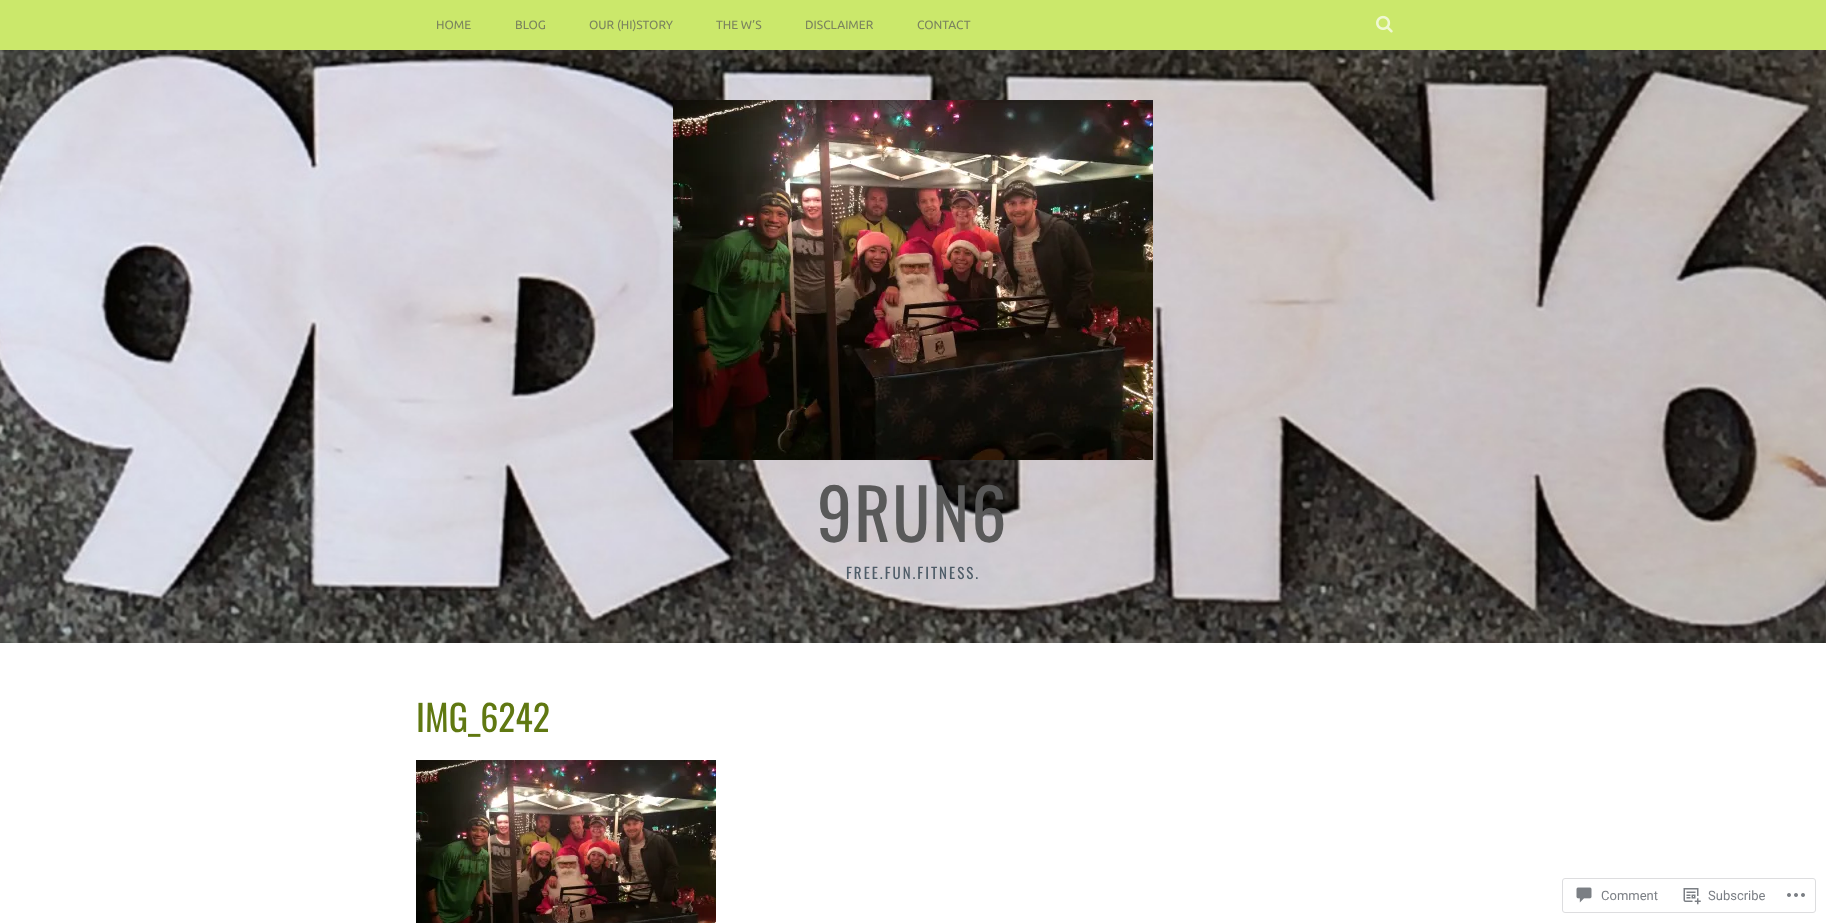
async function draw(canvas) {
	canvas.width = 1826;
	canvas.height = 923;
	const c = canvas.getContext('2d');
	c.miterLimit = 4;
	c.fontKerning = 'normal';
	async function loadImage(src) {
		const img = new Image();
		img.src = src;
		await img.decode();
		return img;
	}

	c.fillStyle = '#fff';
	c.fillRect(0, 0, 1826, 923);
	c.fillStyle = '#cbe86b';
	c.fillRect(0, 0, 1826, 50);
	c.font = '12px Ubuntu';
	c.fillStyle = '#7b845e';
	for (const [text, x, y] of [
		['HOME', 436, 29],
		['BLOG', 515, 29],
		['OUR (HI)STORY', 589, 29],
		['THE W’S', 716, 29],
		['DISCLAIMER', 805, 29],
		['CONTACT', 917, 29],
	]) {
		c.fillText(text, x, y);
	}
	c.drawImage(await loadImage('img1.png'), 1376, 15, 17, 18);
	c.drawImage(await loadImage('img2.png'), 0, 50, 1826, 593);
	c.drawImage(await loadImage('img3.png'), 673, 100, 480, 360);
	c.letterSpacing = '2px';
	c.font = '70px Oswald';
	c.fillStyle = '#595959';
	c.fillText('9RUN6', 817, 542);
	c.font = '15px Oswald';
	c.fillStyle = '#4e5c68';
	c.fillText('FREE.FUN.FITNESS.', 846, 579);
	c.letterSpacing = '0px';
	c.font = '36px Oswald';
	c.fillStyle = '#607811';
	c.fillText('IMG_6242', 416, 732);
	c.drawImage(await loadImage('img4.png'), 416, 760, 300, 163);
	c.beginPath();
	c.roundRect(1562.5, 878.5, 253, 34, 2.5);
	c.strokeStyle = '#dddddf';
	c.stroke();
	c.drawImage(await loadImage('img5.png'), 1576, 887, 16, 16);
	c.font = '13px Roboto';
	c.fillStyle = '#7b7f85';
	c.fillText('Comment', 1601, 900);
	c.drawImage(await loadImage('img6.png'), 1683, 888, 18, 17);
	c.fillText('Subscribe', 1708, 900);
	c.drawImage(await loadImage('img7.png'), 1787, 893, 18, 4);
}

draw(document.querySelector('canvas'));
